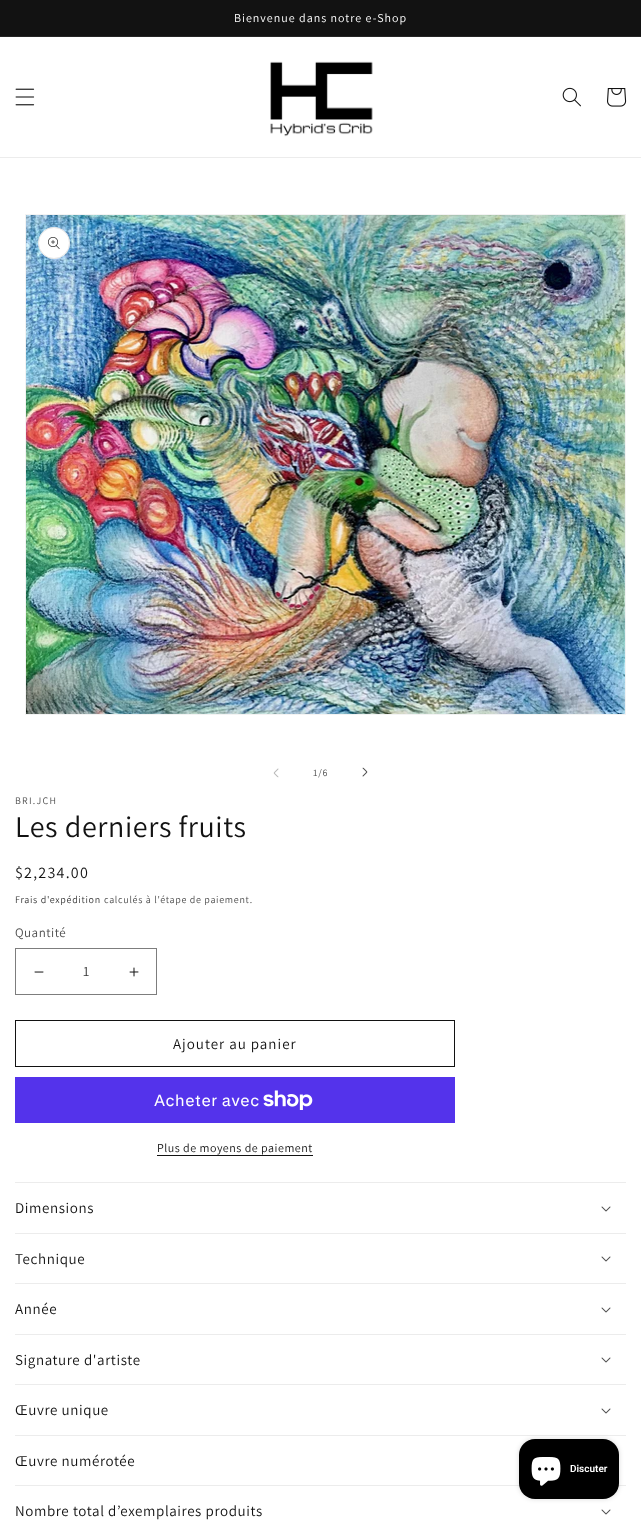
async function draw(canvas) {
	canvas.width = 641;
	canvas.height = 1520;
	const c = canvas.getContext('2d');
	c.miterLimit = 4;
	c.fontKerning = 'normal';
	async function loadImage(src) {
		const img = new Image();
		img.src = src;
		await img.decode();
		return img;
	}

	c.fillStyle = '#fff';
	c.fillRect(0, 0, 641, 1520);
	c.fillStyle = '#121212';
	c.fillRect(0, 0, 641, 36);
	c.fillStyle = '#252525';
	c.fillRect(0, 36, 641, 1);
	c.letterSpacing = '1px';
	c.font = '12px Assistant';
	c.fillStyle = '#fff';
	c.fillText('Bienvenue dans notre e-Shop', 234, 22);
	c.fillStyle = '#ececec';
	c.fillRect(0, 157, 641, 1);
	c.drawImage(await loadImage('img1.png'), 15, 88, 20, 18);
	c.drawImage(await loadImage('img2.png'), 270, 61, 103, 76);
	c.drawImage(await loadImage('img3.png'), 562, 87, 19, 20);
	c.drawImage(await loadImage('img4.png'), 607, 88, 20, 19);
	c.strokeStyle = '#f3f3f3';
	c.strokeRect(25.5, 214.5, 600, 500);
	c.drawImage(await loadImage('img5.png'), 26, 215, 599, 499);
	c.fillStyle = '#fff';
	c.beginPath();
	c.arc(54, 243, 16, 0, 2 * Math.PI);
	c.fill();
	c.beginPath();
	c.arc(54, 243, 15.5, 0, 2 * Math.PI);
	c.strokeStyle = '#1212121a';
	c.stroke();
	c.drawImage(await loadImage('img6.png'), 48, 237, 12, 12);
	c.drawImage(await loadImage('img7.png'), 273, 768, 6, 10);
	c.letterSpacing = '0.7px';
	c.font = '10px Assistant';
	c.fillStyle = '#4d4d4d';
	c.fillText('1/6', 313, 776);
	c.drawImage(await loadImage('img8.png'), 362, 767, 6, 10);
	c.letterSpacing = '1.25px';
	c.fillText('BRI.JCH', 15, 804);
	c.letterSpacing = '0.6px';
	c.font = '30px Assistant';
	c.fillStyle = '#121212';
	c.fillText('Les derniers fruits', 15, 837);
	c.letterSpacing = '1.25px';
	c.font = '16px Assistant';
	c.fillText('$2,234.00', 15, 878);
	c.letterSpacing = '0.7px';
	c.font = '10px Assistant';
	c.fillStyle = '#363636';
	c.fillText('Frais d\'expédition', 15, 903);
	c.fillStyle = '#4d4d4d';
	c.fillText('calculés à l\'étape de paiement.', 104, 903);
	c.letterSpacing = '0.5px';
	c.font = '13px Assistant';
	c.fillText('Quantité', 15, 937);
	c.drawImage(await loadImage('img9.png'), 34, 971, 10, 2);
	c.drawImage(await loadImage('img10.png'), 129, 967, 10, 10);
	c.strokeStyle = '#7d7d7d';
	c.strokeRect(15.5, 948.5, 141, 46);
	c.letterSpacing = '0px';
	c.font = '14px Assistant';
	c.fillStyle = '#363636';
	c.fillText('1', 83, 976);
	c.strokeStyle = '#121212';
	c.strokeRect(15.5, 1020.5, 439, 46);
	c.letterSpacing = '1px';
	c.font = '15px Assistant';
	c.fillStyle = '#121212';
	c.fillText('Ajouter au panier', 173, 1049);
	c.fillStyle = '#5433eb';
	c.fillRect(15, 1077, 440, 46);
	c.letterSpacing = '0.6px';
	c.font = '16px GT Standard';
	c.fillStyle = '#fff';
	c.fillText('Acheter avec', 154, 1106);
	c.drawImage(await loadImage('img11.png'), 263, 1090, 50, 20);
	c.letterSpacing = '0.5px';
	c.font = '12px Assistant';
	c.fillStyle = '#121212';
	c.fillText('Plus de moyens de paiement', 157, 1152);
	for (const [x, y, w, h, color] of [
		[157, 1155, 156, 1, '#121212'],
		[15, 1182, 611, 1, '#ececec'],
		[15, 1233, 611, 1, '#ececec'],
	]) {
		c.fillStyle = color;
		c.fillRect(x, y, w, h);
	}
	c.letterSpacing = '0.6px';
	c.font = '15px Assistant';
	c.fillStyle = '#121212';
	c.fillText('Dimensions', 15, 1213);
	c.drawImage(await loadImage('img12.png'), 601, 1206, 10, 6);
	c.fillStyle = '#ececec';
	c.fillRect(15, 1283, 611, 1);
	c.fillStyle = '#121212';
	c.fillText('Technique', 15, 1264);
	c.drawImage(await loadImage('img12.png'), 601, 1256, 10, 6);
	c.fillStyle = '#ececec';
	c.fillRect(15, 1334, 611, 1);
	c.fillStyle = '#121212';
	c.fillText('Année', 15, 1314);
	c.drawImage(await loadImage('img12.png'), 601, 1307, 10, 6);
	c.fillStyle = '#ececec';
	c.fillRect(15, 1384, 611, 1);
	c.fillStyle = '#121212';
	c.fillText('Signature d\'artiste', 15, 1365);
	c.drawImage(await loadImage('img12.png'), 601, 1357, 10, 6);
	c.fillStyle = '#ececec';
	c.fillRect(15, 1435, 611, 1);
	c.fillStyle = '#121212';
	c.fillText('Œuvre unique', 15, 1415);
	c.drawImage(await loadImage('img12.png'), 601, 1408, 10, 6);
	c.fillStyle = '#ececec';
	c.fillRect(15, 1485, 611, 1);
	c.fillStyle = '#121212';
	c.fillText('Œuvre numérotée', 15, 1466);
	c.fillText('Nombre total d’exemplaires produits', 15, 1516);
	c.drawImage(await loadImage('img12.png'), 601, 1509, 10, 6);
	c.fillStyle = '#00000026';
	c.filter = 'blur(2.5px)';
	c.beginPath();
	c.roundRect(519, 1439, 100, 60, 16);
	c.fill();
	c.filter = 'none';
	c.fillStyle = '#000';
	c.beginPath();
	c.roundRect(519, 1439, 100, 60, 16);
	c.fill();
	c.drawImage(await loadImage('img13.png'), 531, 1457, 30, 29);
	c.letterSpacing = '0px';
	c.font = '600 10px Roboto';
	c.fillStyle = '#fff';
	c.fillText('Discuter', 570, 1472);
}

draw(document.querySelector('canvas'));
